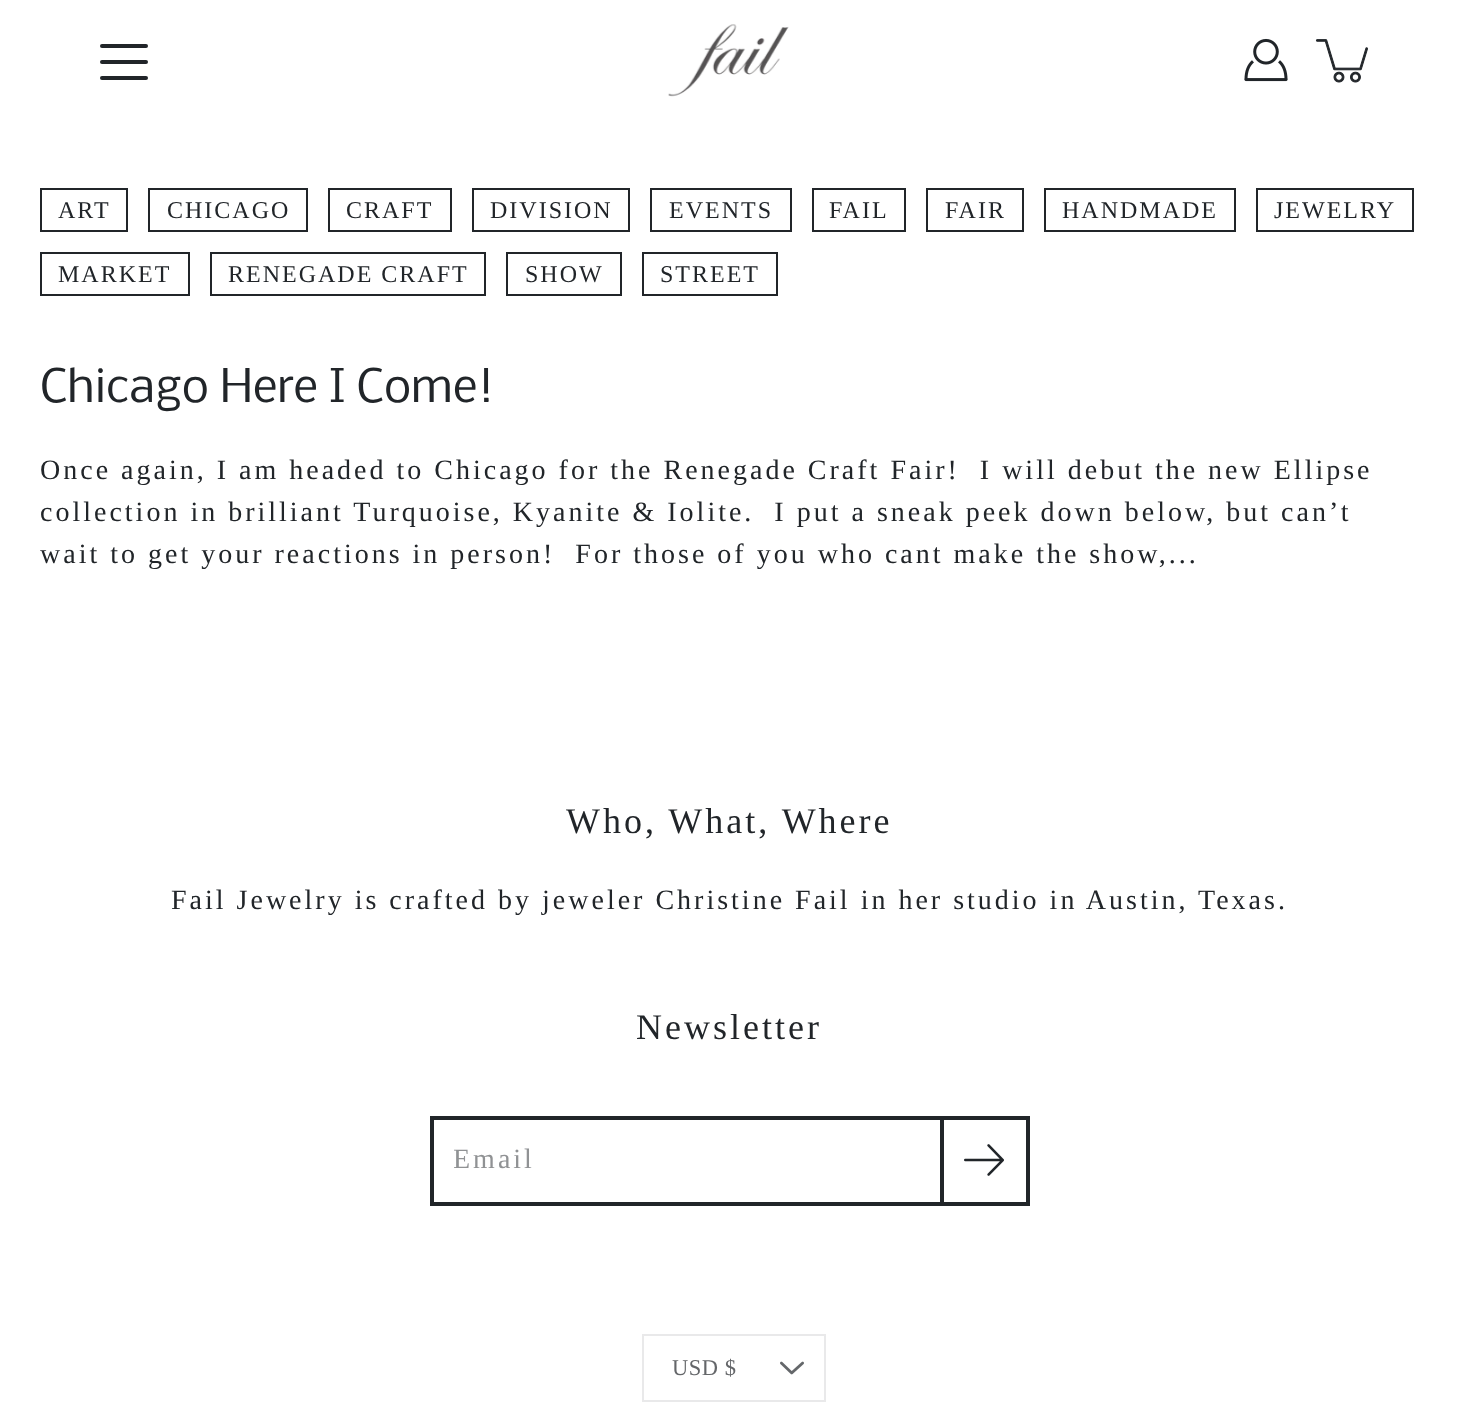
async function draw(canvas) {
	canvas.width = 1457;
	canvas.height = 1423;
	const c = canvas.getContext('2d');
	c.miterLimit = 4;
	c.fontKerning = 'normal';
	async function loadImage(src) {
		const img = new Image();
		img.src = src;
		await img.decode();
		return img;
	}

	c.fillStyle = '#fff';
	c.fillRect(0, 0, 1457, 1423);
	c.drawImage(await loadImage('img1.png'), 668, 24, 121, 73);
	c.fillStyle = '#212529';
	c.beginPath();
	c.roundRect(100, 60, 48, 4, 2);
	c.fill();
	c.beginPath();
	c.roundRect(100, 44, 48, 4, 2);
	c.fill();
	c.beginPath();
	c.roundRect(100, 76, 48, 4, 2);
	c.fill();
	c.drawImage(await loadImage('img2.png'), 1244, 38, 44, 44);
	c.drawImage(await loadImage('img3.png'), 1315, 39, 53, 44);
	c.strokeStyle = '#212529';
	c.lineWidth = 2;
	c.strokeRect(41, 189, 86, 42);
	c.letterSpacing = '2px';
	c.font = '24px Liberation Serif';
	c.fillText('ART', 58, 218);
	c.strokeRect(149, 189, 158, 42);
	c.fillText('CHICAGO', 167, 218);
	c.strokeRect(329, 189, 122, 42);
	c.fillText('CRAFT', 346, 218);
	c.strokeRect(473, 189, 156, 42);
	c.fillText('DIVISION', 490, 218);
	c.strokeRect(651, 189, 140, 42);
	c.fillText('EVENTS', 669, 218);
	c.strokeRect(813, 189, 92, 42);
	c.fillText('FAIL', 829, 218);
	c.strokeRect(927, 189, 96, 42);
	c.fillText('FAIR', 945, 218);
	c.strokeRect(1045, 189, 190, 42);
	c.fillText('HANDMADE', 1062, 218);
	c.strokeRect(1257, 189, 156, 42);
	c.fillText('JEWELRY', 1274, 218);
	c.strokeRect(41, 253, 148, 42);
	c.fillText('MARKET', 58, 282);
	c.strokeRect(211, 253, 274, 42);
	c.fillText('RENEGADE CRAFT', 228, 282);
	c.strokeRect(507, 253, 114, 42);
	c.fillText('SHOW', 525, 282);
	c.strokeRect(643, 253, 134, 42);
	c.fillText('STREET', 660, 282);
	c.letterSpacing = '0px';
	c.font = '44px Nobile';
	c.fillText('Chicago Here I Come!', 40, 402);
	c.letterSpacing = '3px';
	c.font = '28px Liberation Serif';
	for (const [text, x, y] of [
		['Once again, I am headed to Chicago for the Renegade Craft Fair!  I will debut the new Ellipse', 40, 479],
		['collection in brilliant Turquoise, Kyanite & Iolite.  I put a sneak peek down below, but can’t', 40, 521],
		['wait to get your reactions in person!  For those of you who cant make the show,...', 40, 563],
	]) {
		c.fillText(text, x, y);
	}
	c.font = '36px Liberation Serif';
	c.fillText('Who, What, Where', 566, 833);
	c.font = '28px Liberation Serif';
	c.fillText('Fail Jewelry is crafted by jeweler Christine Fail in her studio in Austin, Texas.', 171, 909);
	c.font = '36px Liberation Serif';
	c.fillText('Newsletter', 636, 1039);
	c.lineWidth = 4;
	c.strokeRect(432, 1118, 596, 86);
	c.save();
	c.beginPath();
	c.rect(454, 1144, 482, 32);
	c.clip();
	c.font = '28px Liberation Serif';
	c.fillStyle = '#909294';
	c.fillText('Email', 453, 1168);
	c.restore();
	c.strokeRect(942, 1118, 86, 86);
	c.drawImage(await loadImage('img4.png'), 964, 1144, 40, 32);
	c.strokeStyle = '#e9e9ea';
	c.lineWidth = 2;
	c.strokeRect(643, 1335, 182, 66);
	c.letterSpacing = '0.5px';
	c.font = '22.5px Liberation Serif';
	c.fillStyle = '#646669';
	c.fillText('USD $', 672, 1375);
	c.drawImage(await loadImage('img5.png'), 780, 1361, 24, 14);
}

draw(document.querySelector('canvas'));
